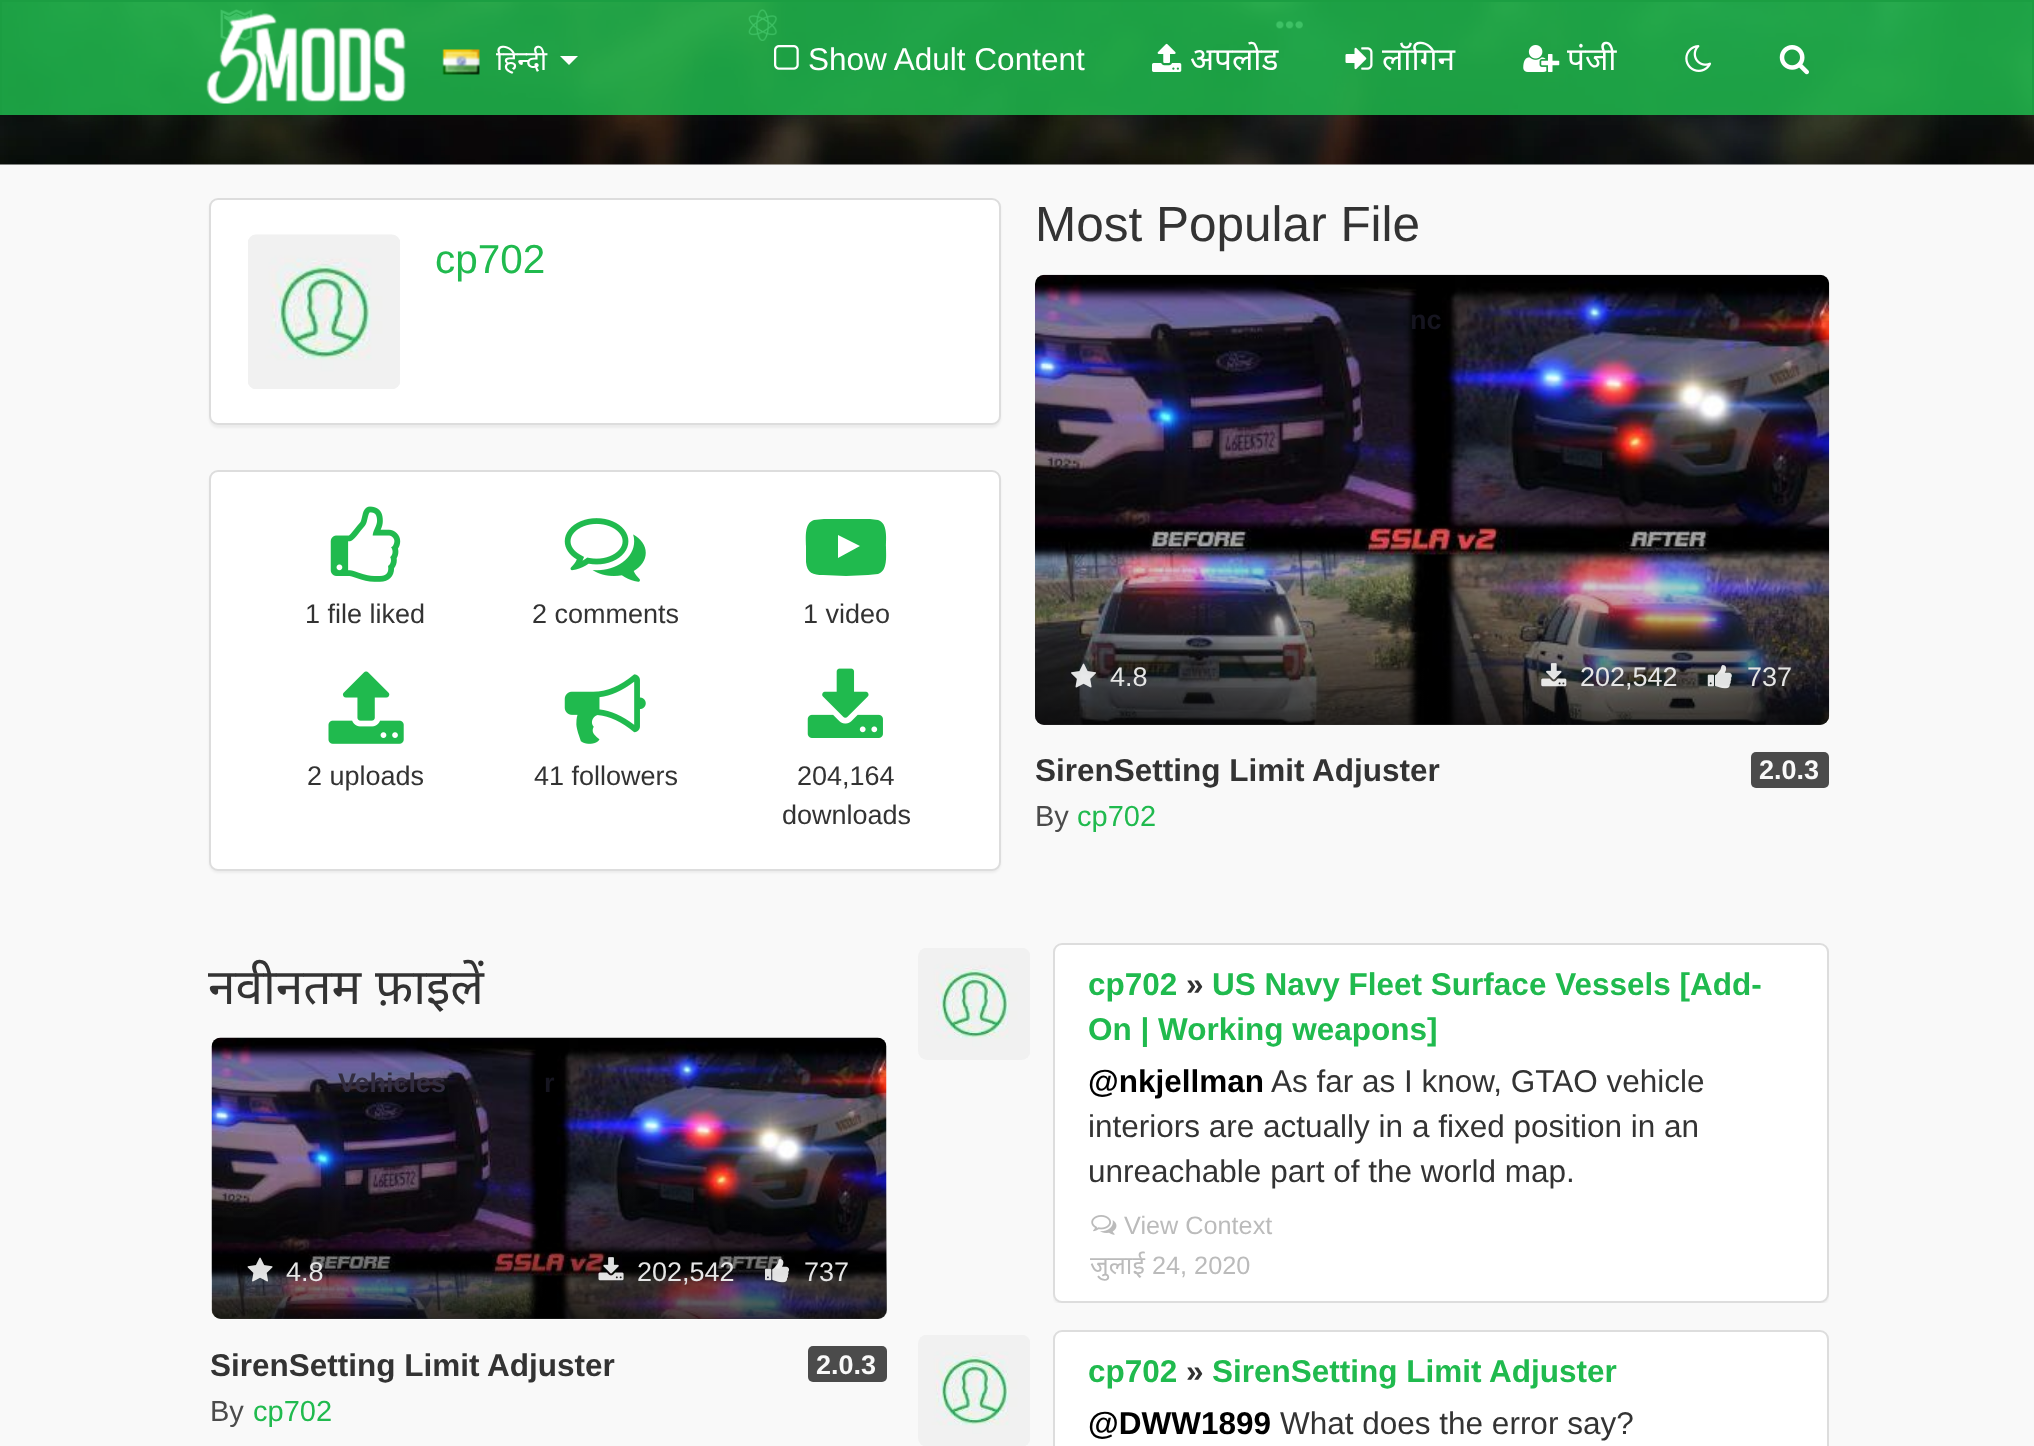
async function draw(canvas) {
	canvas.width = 2034;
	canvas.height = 1446;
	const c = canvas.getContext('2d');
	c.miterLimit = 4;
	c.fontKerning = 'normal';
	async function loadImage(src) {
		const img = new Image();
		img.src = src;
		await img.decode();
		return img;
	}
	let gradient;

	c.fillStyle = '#f9f9f9';
	c.fillRect(0, 0, 2034, 1446);
	c.drawImage(await loadImage('img1.png'), 0, 2, 2034, 163);
	c.drawImage(await loadImage('img2.png'), 220, 9, 33, 32);
	c.drawImage(await loadImage('img3.png'), 748, 9, 30, 32);
	c.drawImage(await loadImage('img4.png'), 1275, 20, 28, 9);
	for (const [x, y, w, h, color] of [
		[2, 2, 2030, 113, '#20ba4ed9'],
		[0, 0, 2034, 2, '#1b9e42'],
		[2032, 0, 2, 115, '#1b9e42'],
		[0, 0, 2, 115, '#1b9e42'],
	]) {
		c.fillStyle = color;
		c.fillRect(x, y, w, h);
	}
	c.drawImage(await loadImage('img5.png'), 206, 13, 200, 91);
	c.drawImage(await loadImage('img6.png'), 442, 49, 38, 26);
	c.font = '27px Noto Sans';
	c.fillStyle = '#fff';
	c.fillText('हिन्दी', 496, 70);
	c.beginPath();
	c.moveTo(560, 56);
	c.lineTo(578, 56);
	c.lineTo(569, 65);
	c.closePath();
	c.fill();
	c.drawImage(await loadImage('img7.png'), 774, 45, 25, 25);
	c.font = '31.5px Liberation Sans';
	c.fillText('Show Adult Content', 808, 70);
	c.drawImage(await loadImage('img8.png'), 1152, 43, 30, 29);
	c.font = '31.5px Noto Sans';
	c.fillText('अपलोड', 1190, 70);
	c.drawImage(await loadImage('img9.png'), 1345, 47, 28, 23);
	c.fillText('लॉगिन', 1382, 70);
	c.drawImage(await loadImage('img10.png'), 1523, 45, 37, 27);
	c.fillText('पंजी', 1567, 70);
	c.drawImage(await loadImage('img11.png'), 1685, 45, 27, 27);
	c.drawImage(await loadImage('img12.png'), 1779, 45, 30, 30);
	c.fillStyle = '#0000000d';
	c.filter = 'blur(1px)';
	c.beginPath();
	c.roundRect(209, 200, 792, 228, 9);
	c.fill();
	c.filter = 'none';
	c.fillStyle = '#fff';
	c.beginPath();
	c.roundRect(210, 199, 790, 225, 8);
	c.fill();
	c.strokeStyle = '#ddd';
	c.lineWidth = 2;
	c.stroke();
	c.drawImage(await loadImage('img13.png'), 248, 234, 152, 155);
	c.font = '40.5px Liberation Sans';
	c.fillStyle = '#20ba4e';
	c.fillText('cp702', 435, 273);
	c.fillStyle = '#0000000d';
	c.filter = 'blur(1px)';
	c.beginPath();
	c.roundRect(209, 473, 792, 400, 9);
	c.fill();
	c.filter = 'none';
	c.fillStyle = '#fff';
	c.beginPath();
	c.roundRect(210, 471, 790, 399, 8);
	c.fill();
	c.stroke();
	c.drawImage(await loadImage('img14.png'), 330, 506, 71, 76);
	c.font = '27px Liberation Sans';
	c.fillStyle = '#333';
	c.fillText('1 file liked', 305, 623);
	c.drawImage(await loadImage('img15.png'), 564, 518, 82, 64);
	c.fillText('2 comments', 532, 623);
	c.fillStyle = '#20ba4e';
	c.beginPath();
	c.moveTo(838, 558);
	c.lineTo(860, 546);
	c.lineTo(838, 535);
	c.closePath();
	c.moveTo(846, 519);
	c.lineTo(870, 519);
	c.lineTo(878, 520);
	c.bezierCurveTo(888, 523, 886, 539, 886, 547);
	c.bezierCurveTo(886, 555, 888, 571, 878, 574);
	c.lineTo(868, 575);
	c.lineTo(846, 576);
	c.lineTo(823, 575);
	c.bezierCurveTo(813, 575, 807, 573, 806, 562);
	c.lineTo(806, 546);
	c.bezierCurveTo(806, 538, 804, 523, 814, 520);
	c.lineTo(824, 519);
	c.closePath();
	c.fill();
	c.fillStyle = '#333';
	c.fillText('1 video', 803, 623);
	c.drawImage(await loadImage('img16.png'), 328, 671, 76, 73);
	c.fillText('2 uploads', 307, 785);
	c.drawImage(await loadImage('img17.png'), 564, 674, 82, 70);
	c.fillText('41 followers', 534, 785);
	c.drawImage(await loadImage('img18.png'), 807, 668, 76, 70);
	c.fillText('204,164', 797, 785);
	c.fillText('downloads', 782, 824);
	c.font = '49.5px Liberation Sans';
	c.fillText('Most Popular File', 1035, 241);
	c.drawImage(await loadImage('img19.png'), 1035, 274, 795, 451);
	gradient = c.createLinearGradient(1432, 274, 1432, 725);
	gradient.addColorStop(0.5, '#00000000');
	gradient.addColorStop(0.75, '#00000040');
	gradient.addColorStop(1, '#000000bf');
	c.fillStyle = gradient;
	c.beginPath();
	c.roundRect(1035, 275, 794, 450, 9);
	c.fill();
	c.font = 'bold 27px Liberation Sans';
	c.fillStyle = '#161520';
	c.fillText('nc', 1410, 329);
	c.drawImage(await loadImage('img20.png'), 1071, 663, 25, 25);
	c.font = '27px Liberation Sans';
	c.fillStyle = '#e6e6e6';
	c.fillText('4.8', 1110, 686);
	c.drawImage(await loadImage('img21.png'), 1541, 663, 26, 24);
	c.fillText('202,542', 1580, 686);
	c.drawImage(await loadImage('img22.png'), 1707, 665, 25, 24);
	c.fillText('737', 1747, 686);
	c.font = 'bold 31.5px Liberation Sans';
	c.fillStyle = '#333';
	c.fillText('SirenSetting Limit Adjuster', 1035, 781);
	c.fillStyle = '#4b4b4b';
	c.beginPath();
	c.roundRect(1751, 752, 78, 36, 5);
	c.fill();
	c.font = 'bold 27px Liberation Sans';
	c.fillStyle = '#f9f9f9';
	c.fillText('2.0.3', 1759, 779);
	c.font = '29px Liberation Sans';
	c.fillStyle = '#4b4b4b';
	c.fillText('By', 1035, 826);
	c.fillStyle = '#20ba4e';
	c.fillText('cp702', 1077, 826);
	c.wordSpacing = '1px';
	c.font = '49.5px Noto Sans';
	c.fillStyle = '#333';
	c.fillText('नवीनतम फ़ाइलें', 208, 1004);
	c.drawImage(await loadImage('img23.png'), 211, 1037, 676, 282);
	gradient = c.createLinearGradient(549, 1037, 549, 1319);
	gradient.addColorStop(0.5, '#00000000');
	gradient.addColorStop(0.75, '#00000040');
	gradient.addColorStop(1, '#000000bf');
	c.fillStyle = gradient;
	c.beginPath();
	c.roundRect(212, 1037, 675, 282, 9);
	c.fill();
	c.wordSpacing = '0px';
	c.font = 'bold 27px Liberation Sans';
	c.fillStyle = '#322d40';
	c.fillText('Vehicles', 338, 1092);
	c.fillStyle = '#161520';
	c.fillText('r', 544, 1092);
	c.drawImage(await loadImage('img24.png'), 247, 1257, 26, 25);
	c.font = '27px Liberation Sans';
	c.fillStyle = '#e6e6e6';
	c.fillText('4.8', 286, 1281);
	c.drawImage(await loadImage('img25.png'), 598, 1257, 26, 24);
	c.fillText('202,542', 637, 1281);
	c.drawImage(await loadImage('img26.png'), 765, 1259, 25, 24);
	c.fillText('737', 804, 1281);
	c.font = 'bold 31.5px Liberation Sans';
	c.fillStyle = '#333';
	c.fillText('SirenSetting Limit Adjuster', 210, 1376);
	c.fillStyle = '#4b4b4b';
	c.beginPath();
	c.roundRect(808, 1346, 79, 36, 5);
	c.fill();
	c.font = 'bold 27px Liberation Sans';
	c.fillStyle = '#f9f9f9';
	c.fillText('2.0.3', 816, 1374);
	c.font = '29px Liberation Sans';
	c.fillStyle = '#4b4b4b';
	c.fillText('By', 210, 1421);
	c.fillStyle = '#20ba4e';
	c.fillText('cp702', 253, 1421);
	c.drawImage(await loadImage('img27.png'), 918, 948, 112, 112);
	c.save();
	c.beginPath();
	c.rect(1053, 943, 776, 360);
	c.clip();
	c.fillStyle = '#0000000d';
	c.filter = 'blur(1px)';
	c.beginPath();
	c.roundRect(1053, 945, 776, 360, 9);
	c.fill();
	c.filter = 'none';
	c.restore();
	c.fillStyle = '#fff';
	c.beginPath();
	c.roundRect(1054, 944, 774, 358, 8);
	c.fill();
	c.stroke();
	c.font = 'bold 31.5px Liberation Sans';
	c.fillStyle = '#20ba4e';
	c.fillText('cp702', 1088, 995);
	c.fillStyle = '#333';
	c.fillText('»', 1186, 995);
	c.fillStyle = '#20ba4e';
	c.fillText('US Navy Fleet Surface Vessels [Add-', 1212, 995);
	c.fillText('On | Working weapons]', 1088, 1040);
	c.fillStyle = '#000';
	c.fillText('@nkjellman', 1088, 1092);
	c.font = '31.5px Liberation Sans';
	c.fillStyle = '#333';
	for (const [text, x, y] of [
		['As far as I know, GTAO vehicle', 1271, 1092],
		['interiors are actually in a fixed position in an', 1088, 1137],
		['unreachable part of the world map.', 1088, 1182],
	]) {
		c.fillText(text, x, y);
	}
	c.drawImage(await loadImage('img28.png'), 1091, 1215, 26, 20);
	c.font = '25.25px Liberation Sans';
	c.fillStyle = '#bbb';
	c.fillText('View Context', 1124, 1234);
	c.font = '25.25px Noto Sans';
	c.fillText('जुलाई', 1090, 1274);
	c.font = '25.25px Liberation Sans';
	c.fillText('24, 2020', 1152, 1274);
	c.drawImage(await loadImage('img29.png'), 918, 1335, 112, 111);
	c.fillStyle = '#fff';
	c.beginPath();
	c.roundRect(1054, 1331, 774, 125, 8);
	c.fill();
	c.stroke();
	c.font = 'bold 31.5px Liberation Sans';
	c.fillStyle = '#20ba4e';
	c.fillText('cp702', 1088, 1382);
	c.fillStyle = '#333';
	c.fillText('»', 1186, 1382);
	c.fillStyle = '#20ba4e';
	c.fillText('SirenSetting Limit Adjuster', 1212, 1382);
	c.fillStyle = '#000';
	c.fillText('@DWW1899', 1088, 1434);
	c.font = '31.5px Liberation Sans';
	c.fillStyle = '#333';
	c.fillText('What does the error say?', 1280, 1434);
}

draw(document.querySelector('canvas'));
